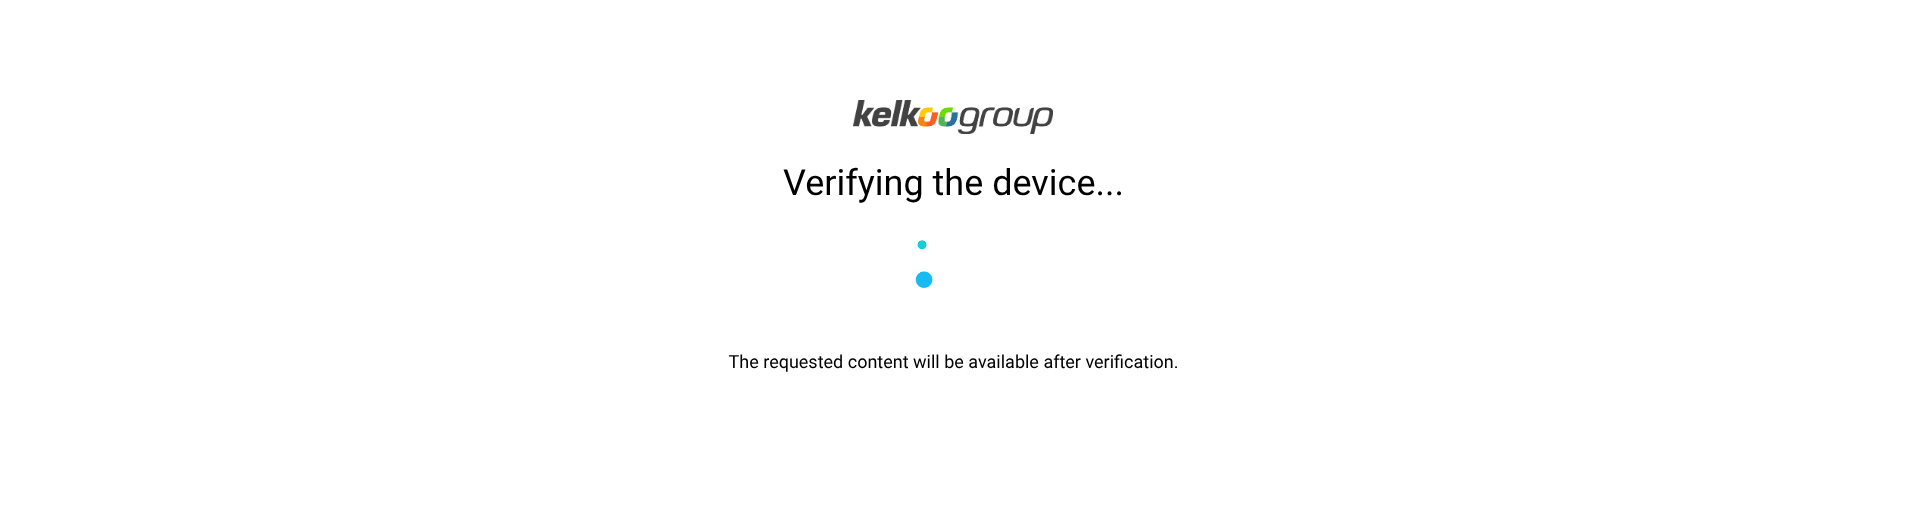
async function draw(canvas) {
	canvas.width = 1907;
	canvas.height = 507;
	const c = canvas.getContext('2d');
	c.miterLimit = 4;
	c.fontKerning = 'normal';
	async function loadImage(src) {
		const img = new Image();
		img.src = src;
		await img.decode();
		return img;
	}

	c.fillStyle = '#fff';
	c.fillRect(0, 0, 1907, 507);
	c.drawImage(await loadImage('img1.png'), 728, 100, 449, 272);
}

draw(document.querySelector('canvas'));
